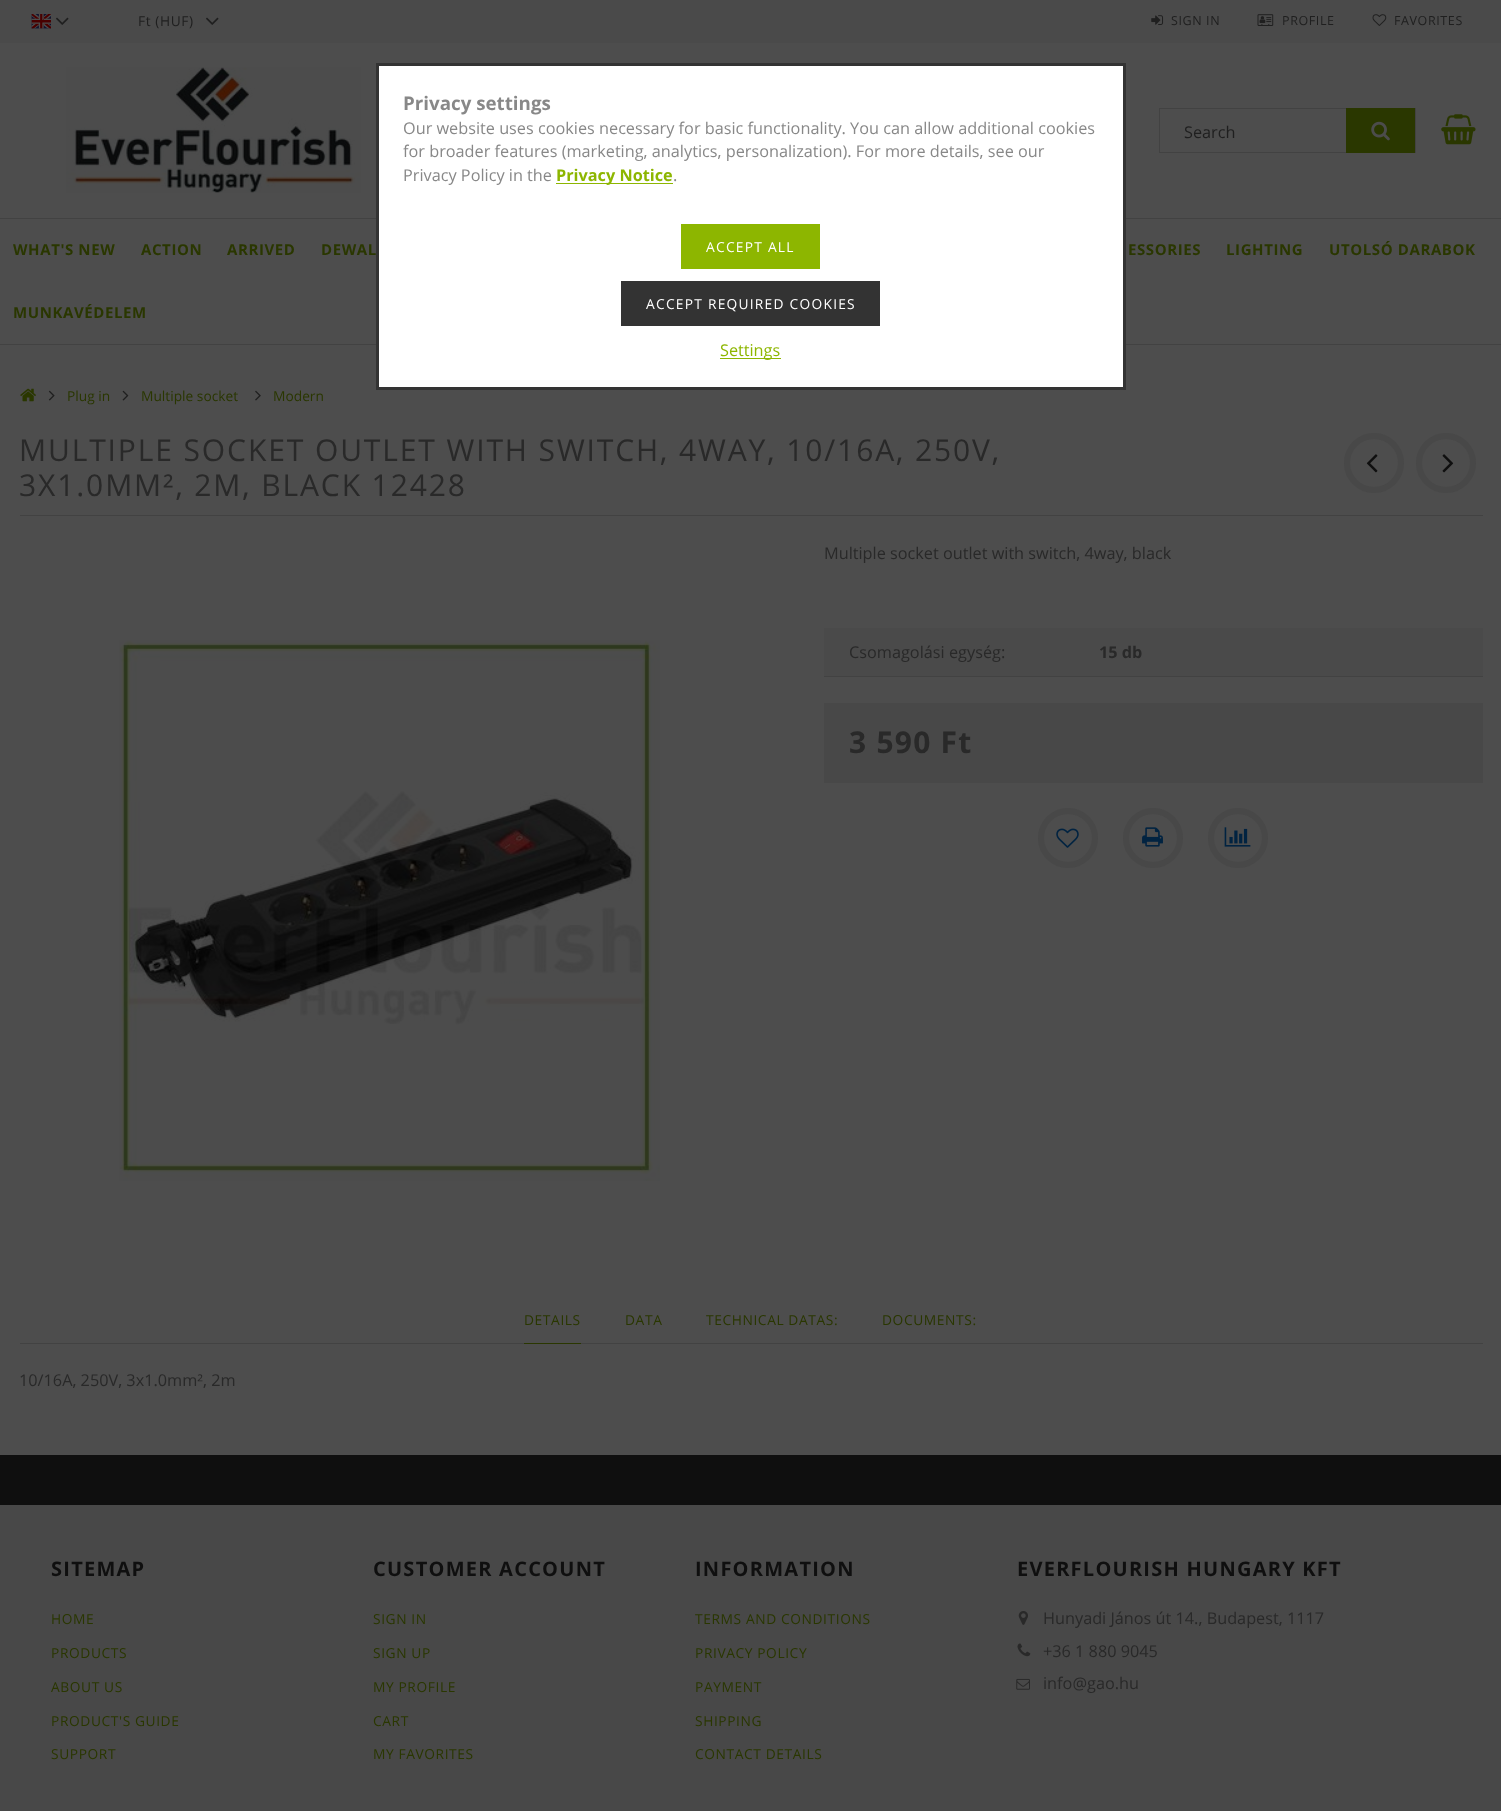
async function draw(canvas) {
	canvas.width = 1501;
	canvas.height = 1811;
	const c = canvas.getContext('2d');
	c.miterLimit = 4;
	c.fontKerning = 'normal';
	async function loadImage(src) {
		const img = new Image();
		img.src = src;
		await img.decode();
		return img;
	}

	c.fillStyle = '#4d4d4d';
	c.fillRect(0, 0, 1501, 1811);
	c.fillStyle = '#4a4a4a';
	c.fillRect(0, 0, 1501, 43);
	c.drawImage(await loadImage('img1.png'), 31, 14, 20, 15);
	c.drawImage(await loadImage('img2.png'), 56, 17, 13, 8);
	c.letterSpacing = '0.6px';
	c.font = '13.75px Open Sans';
	c.fillStyle = '#1f1f1f';
	c.fillText('Ft (HUF)', 138, 26);
	c.drawImage(await loadImage('img2.png'), 206, 17, 13, 8);
	c.drawImage(await loadImage('img3.png'), 1151, 15, 13, 10);
	c.font = '12.5px Open Sans';
	c.fillText('SIGN IN', 1171, 25);
	c.drawImage(await loadImage('img4.png'), 1257, 14, 17, 12);
	c.fillText('PROFILE', 1282, 25);
	c.drawImage(await loadImage('img5.png'), 1372, 14, 15, 12);
	c.fillText('FAVORITES', 1394, 25);
	c.drawImage(await loadImage('img6.png'), 66, 67, 295, 126);
	c.strokeStyle = '#424242';
	c.strokeRect(1159.5, 108.5, 256, 44);
	c.letterSpacing = '0px';
	c.font = '16.25px Open Sans';
	c.fillText('Search', 1184, 138);
	c.fillStyle = '#2a3700';
	c.fillRect(1346, 108, 69, 45);
	c.drawImage(await loadImage('img7.png'), 1371, 121, 19, 20);
	c.drawImage(await loadImage('img8.png'), 1441, 114, 35, 31);
	c.fillStyle = '#424242';
	c.fillRect(0, 218, 1501, 1);
	c.fillRect(0, 344, 1501, 1);
	c.letterSpacing = '0.6px';
	c.font = 'bold 15px Open Sans';
	c.fillStyle = '#2a3700';
	for (const [text, x, y] of [
		['WHAT\'S NEW', 13, 255],
		['ACTION', 141, 255],
		['ARRIVED', 227, 255],
		['DEWAL', 321, 255],
		['ESSORIES', 1128, 255],
		['LIGHTING', 1226, 255],
		['UTOLSÓ DARABOK', 1329, 255],
		['MUNKAVÉDELEM', 13, 318],
	]) {
		c.fillText(text, x, y);
	}
	c.drawImage(await loadImage('img9.png'), 20, 388, 16, 14);
	c.drawImage(await loadImage('img10.png'), 48, 390, 7, 11);
	c.letterSpacing = '0px';
	c.font = '13.75px Open Sans';
	c.fillText('Plug in', 67, 401);
	c.drawImage(await loadImage('img11.png'), 122, 390, 7, 11);
	c.fillText('Multiple socket', 141, 401);
	c.drawImage(await loadImage('img12.png'), 255, 390, 6, 11);
	c.fillText('Modern', 273, 401);
	c.fillStyle = '#424242';
	c.fillRect(20, 515, 1463, 1);
	c.letterSpacing = '1.88px';
	c.font = '30px Open Sans';
	c.fillStyle = '#292929';
	c.fillText('MULTIPLE SOCKET OUTLET WITH SWITCH, 4WAY, 10/16A, 250V,', 19, 461);
	c.fillText('3X1.0MM², 2M, BLACK 12428', 19, 496);
	c.beginPath();
	c.arc(1374, 463, 27, 0, 2 * Math.PI);
	c.strokeStyle = '#484848';
	c.lineWidth = 6;
	c.stroke();
	c.drawImage(await loadImage('img13.png'), 1366, 454, 12, 19);
	c.beginPath();
	c.arc(1446, 463, 27, 0, 2 * Math.PI);
	c.stroke();
	c.drawImage(await loadImage('img14.png'), 1442, 454, 12, 19);
	c.drawImage(await loadImage('img15.png'), 119, 640, 541, 541);
	c.letterSpacing = '0px';
	c.font = '16.25px Open Sans';
	c.fillText('Multiple socket outlet with switch, 4way, black', 824, 559);
	c.fillStyle = '#424242';
	c.fillRect(824, 676, 659, 1);
	c.fillStyle = '#4a4a4a';
	c.fillRect(824, 628, 659, 48);
	c.fillStyle = '#292929';
	c.fillText('Csomagolási egység:', 849, 658);
	c.font = 'bold 16.25px Open Sans';
	c.fillText('15 db', 1099, 658);
	c.fillStyle = '#484848';
	c.fillRect(824, 703, 659, 80);
	c.letterSpacing = '1.25px';
	c.font = 'bold 30px Open Sans';
	c.fillStyle = '#292929';
	c.fillText('3 590 Ft', 849, 753);
	c.beginPath();
	c.arc(1068, 838, 27, 0, 2 * Math.PI);
	c.stroke();
	c.drawImage(await loadImage('img16.png'), 1056, 828, 23, 20);
	c.beginPath();
	c.arc(1153, 838, 27, 0, 2 * Math.PI);
	c.stroke();
	c.drawImage(await loadImage('img17.png'), 1142, 827, 21, 20);
	c.beginPath();
	c.arc(1238, 838, 27, 0, 2 * Math.PI);
	c.stroke();
	c.drawImage(await loadImage('img18.png'), 1224, 827, 27, 20);
	c.fillStyle = '#424242';
	c.fillRect(20, 1343, 1463, 1);
	c.fillStyle = '#2a3700';
	c.fillRect(524, 1343, 57, 1);
	c.letterSpacing = '0.6px';
	c.font = '13.75px Open Sans';
	for (const [text, x, y] of [
		['DETAILS', 524, 1325],
		['DATA', 625, 1325],
		['TECHNICAL DATAS:', 706, 1325],
		['DOCUMENTS:', 882, 1325],
	]) {
		c.fillText(text, x, y);
	}
	c.letterSpacing = '0px';
	c.font = '16.25px Open Sans';
	c.fillStyle = '#292929';
	c.fillText('10/16A, 250V, 3x1.0mm², 2m', 19, 1386);
	c.fillStyle = '#0f0f0f';
	c.fillRect(0, 1455, 1501, 50);
	c.fillStyle = '#484848';
	c.fillRect(0, 1505, 1501, 306);
	c.letterSpacing = '1.25px';
	c.font = 'bold 20px Open Sans';
	c.fillStyle = '#0f0f0f';
	c.fillText('SITEMAP', 51, 1576);
	c.letterSpacing = '0.6px';
	c.font = '13.75px Open Sans';
	c.fillStyle = '#2a3700';
	for (const [text, x, y] of [
		['HOME', 51, 1624],
		['PRODUCTS', 51, 1658],
		['ABOUT US', 51, 1692],
		['PRODUCT\'S GUIDE', 51, 1726],
		['SUPPORT', 51, 1759],
	]) {
		c.fillText(text, x, y);
	}
	c.letterSpacing = '1.25px';
	c.font = 'bold 20px Open Sans';
	c.fillStyle = '#0f0f0f';
	c.fillText('CUSTOMER ACCOUNT', 373, 1576);
	c.letterSpacing = '0.6px';
	c.font = '13.75px Open Sans';
	c.fillStyle = '#2a3700';
	for (const [text, x, y] of [
		['SIGN IN', 373, 1624],
		['SIGN UP', 373, 1658],
		['MY PROFILE', 373, 1692],
		['CART', 373, 1726],
		['MY FAVORITES', 373, 1759],
	]) {
		c.fillText(text, x, y);
	}
	c.letterSpacing = '1.25px';
	c.font = 'bold 20px Open Sans';
	c.fillStyle = '#0f0f0f';
	c.fillText('INFORMATION', 695, 1576);
	c.letterSpacing = '0.6px';
	c.font = '13.75px Open Sans';
	c.fillStyle = '#2a3700';
	for (const [text, x, y] of [
		['TERMS AND CONDITIONS', 695, 1624],
		['PRIVACY POLICY', 695, 1658],
		['PAYMENT', 695, 1692],
		['SHIPPING', 695, 1726],
		['CONTACT DETAILS', 695, 1759],
	]) {
		c.fillText(text, x, y);
	}
	c.letterSpacing = '1.25px';
	c.font = 'bold 20px Open Sans';
	c.fillStyle = '#0f0f0f';
	c.fillText('EVERFLOURISH HUNGARY KFT', 1017, 1576);
	c.drawImage(await loadImage('img19.png'), 1018, 1611, 10, 14);
	c.letterSpacing = '0px';
	c.font = '16.25px Open Sans';
	c.fillStyle = '#292929';
	c.fillText('Hunyadi János út 14., Budapest, 1117', 1043, 1624);
	c.drawImage(await loadImage('img20.png'), 1017, 1643, 14, 14);
	c.fillText('+36 1 880 9045', 1043, 1657);
	c.drawImage(await loadImage('img21.png'), 1016, 1678, 14, 12);
	c.fillText('info@gao.hu', 1043, 1689);
	c.fillStyle = '#fff';
	c.beginPath();
	c.rect(377.5, 64.5, 747, 324);
	c.fill();
	c.strokeStyle = '#333';
	c.lineWidth = 3;
	c.stroke();
	c.font = 'bold 18.75px Open Sans';
	c.fillStyle = '#888';
	c.fillText('Privacy settings', 403, 110);
	c.font = '16.25px Open Sans';
	for (const [text, x, y] of [
		['Our website uses cookies necessary for basic functionality. You can allow additional cookies', 403, 134],
		['for broader features (marketing, analytics, personalization). For more details, see our', 403, 157],
		['Privacy Policy in the', 403, 181],
	]) {
		c.fillText(text, x, y);
	}
	c.fillStyle = '#8db600';
	c.fillRect(556, 183, 117, 1);
	c.font = 'bold 16.25px Open Sans';
	c.fillText('Privacy Notice', 556, 181);
	c.font = '16.25px Open Sans';
	c.fillStyle = '#888';
	c.fillText('.', 673, 181);
	c.fillStyle = '#8db600';
	c.fillRect(681, 224, 139, 45);
	c.letterSpacing = '1.25px';
	c.font = '13.75px Open Sans';
	c.fillStyle = '#fff';
	c.fillText('ACCEPT ALL', 706, 252);
	c.fillStyle = '#333';
	c.fillRect(621, 281, 259, 45);
	c.fillStyle = '#fff';
	c.fillText('ACCEPT REQUIRED COOKIES', 646, 309);
	c.fillStyle = '#8db600';
	c.fillRect(720, 358, 61, 1);
	c.letterSpacing = '0px';
	c.font = '16.25px Open Sans';
	c.fillText('Settings', 720, 356);
}

draw(document.querySelector('canvas'));
